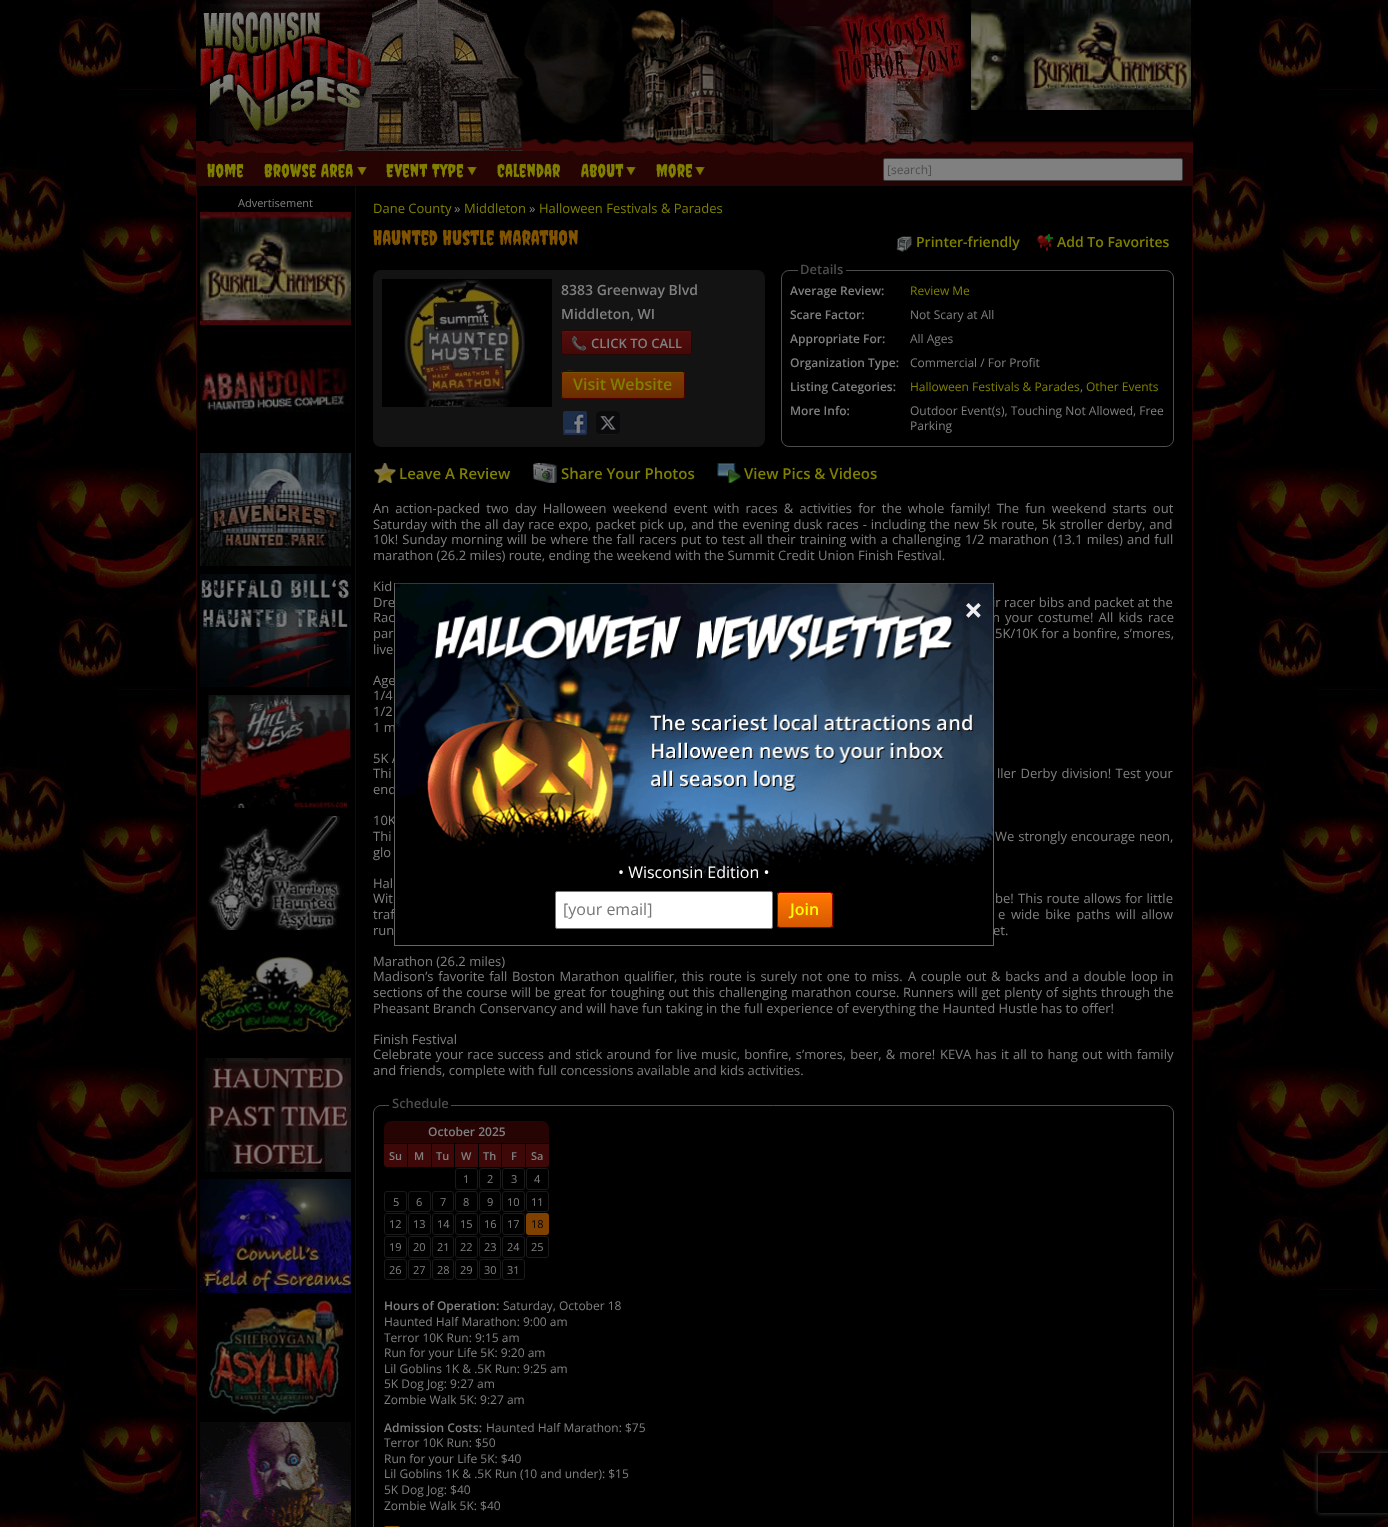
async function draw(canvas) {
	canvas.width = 1388;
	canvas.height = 1527;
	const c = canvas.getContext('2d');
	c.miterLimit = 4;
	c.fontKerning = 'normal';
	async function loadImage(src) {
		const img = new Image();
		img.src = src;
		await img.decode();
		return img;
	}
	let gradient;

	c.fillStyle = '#fff';
	c.fillRect(0, 0, 1388, 1527);
	c.drawImage(await loadImage('img1.png'), 0, 0, 1388, 1527);
	c.drawImage(await loadImage('img2.png'), 489, 0, 704, 150);
	c.drawImage(await loadImage('img3.png'), 196, 0, 176, 150);
	c.drawImage(await loadImage('img4.png'), 372, 0, 117, 150);
	c.drawImage(await loadImage('img5.png'), 489, 0, 167, 148);
	c.drawImage(await loadImage('img6.png'), 656, 0, 117, 150);
	c.drawImage(await loadImage('img7.png'), 773, 0, 198, 150);
	c.drawImage(await loadImage('img8.png'), 971, 0, 220, 110);
	c.fillStyle = '#260404';
	c.fillRect(196, 159, 997, 27);
	c.drawImage(await loadImage('img9.png'), 196, 150, 997, 9);
	c.letterSpacing = '0.25px';
	c.font = '18px Creepster';
	c.fillStyle = '#808000';
	c.fillText('Home', 207, 177);
	c.drawImage(await loadImage('img10.png'), 357, 167, 10, 8);
	c.fillText('Browse Area', 264, 177);
	c.drawImage(await loadImage('img10.png'), 467, 167, 10, 8);
	c.fillText('Event Type', 386, 177);
	c.fillText('Calendar', 497, 177);
	c.drawImage(await loadImage('img10.png'), 626, 167, 10, 8);
	c.fillText('About', 581, 177);
	c.drawImage(await loadImage('img10.png'), 695, 167, 10, 8);
	c.fillText('More', 656, 177);
	c.fillStyle = '#808080';
	c.beginPath();
	c.roundRect(883.5, 158.5, 299, 22, 1.5);
	c.fill();
	c.strokeStyle = '#3b3b3b';
	c.stroke();
	c.letterSpacing = '0px';
	c.font = '12px Open Sans';
	c.fillStyle = '#4d4d4d';
	c.fillText('[search]', 887, 174);
	for (const [x, y, w, h, color] of [
		[197, 186, 995, 1341, '#000'],
		[1192, 186, 1, 1341, '#260404'],
		[196, 186, 1, 1341, '#260404'],
		[355, 186, 1, 1341, '#260404'],
	]) {
		c.fillStyle = color;
		c.fillRect(x, y, w, h);
	}
	c.font = '11px Open Sans';
	c.fillStyle = '#808080';
	c.fillText('Advertisement', 238, 207);
	c.drawImage(await loadImage('img11.png'), 200, 212, 151, 113);
	c.drawImage(await loadImage('img12.png'), 200, 352, 151, 61);
	c.drawImage(await loadImage('img13.png'), 200, 453, 151, 113);
	c.drawImage(await loadImage('img14.png'), 200, 574, 151, 113);
	c.drawImage(await loadImage('img15.png'), 200, 695, 151, 113);
	c.drawImage(await loadImage('img16.png'), 208, 816, 136, 114);
	c.drawImage(await loadImage('img17.png'), 200, 953, 151, 82);
	c.drawImage(await loadImage('img18.png'), 200, 1058, 151, 114);
	c.drawImage(await loadImage('img19.png'), 200, 1179, 151, 114);
	c.drawImage(await loadImage('img20.png'), 204, 1300, 142, 114);
	c.drawImage(await loadImage('img21.png'), 200, 1422, 151, 105);
	c.font = '13px Open Sans';
	c.fillStyle = '#808000';
	c.fillText('Dane County', 373, 213);
	c.fillStyle = '#808080';
	c.fillText('»', 454, 213);
	c.fillStyle = '#808000';
	c.fillText('Middleton', 464, 213);
	c.fillStyle = '#808080';
	c.fillText('»', 529, 213);
	c.fillStyle = '#808000';
	c.fillText('Halloween Festivals & Parades', 539, 213);
	c.font = '20.5px Creepster';
	c.fillStyle = '#805300';
	c.fillText('Haunted Hustle Marathon', 373, 245);
	c.drawImage(await loadImage('img22.png'), 896, 236, 16, 16);
	c.font = '600 14px Open Sans';
	c.fillStyle = '#808000';
	c.fillText('Printer-friendly', 916, 247);
	c.drawImage(await loadImage('img23.png'), 1037, 234, 16, 17);
	c.fillText('Add To Favorites', 1057, 247);
	c.fillStyle = '#131313';
	c.beginPath();
	c.roundRect(373, 270, 392, 177, 8);
	c.fill();
	c.drawImage(await loadImage('img24.png'), 382, 279, 170, 128);
	c.fillStyle = '#808080';
	c.fillText('8383 Greenway Blvd', 561, 295);
	c.fillText('Middleton, WI', 561, 319);
	c.save();
	c.beginPath();
	c.roundRect(561, 330, 131, 25, 2.5);
	c.clip();
	gradient = c.createLinearGradient(627, 331, 627, 354);
	gradient.addColorStop(0.05, '#540e0c');
	gradient.addColorStop(1, '#420909');
	c.fillStyle = gradient;
	c.fillRect(561, 331, 131, 23);
	c.restore();
	c.fillStyle = '#4c1b0b';
	c.beginPath();
	c.moveTo(563, 332);
	c.lineTo(690, 332);
	c.lineTo(691, 333);
	c.bezierCurveTo(691, 332, 691, 331, 690, 331);
	c.lineTo(564, 331);
	c.lineTo(562, 331);
	c.lineTo(562, 333);
	c.closePath();
	c.fill();
	c.beginPath();
	c.roundRect(561.5, 330.5, 130, 24, 2);
	c.strokeStyle = '#270606';
	c.stroke();
	c.font = 'bold 13px Noto Color Emoji';
	c.fillStyle = '#808080';
	c.fillText('📞', 571, 348);
	c.font = '600 13px Open Sans';
	c.fillText('CLICK TO CALL', 591, 348);
	c.save();
	c.beginPath();
	c.roundRect(561, 371, 124, 28, 3);
	c.clip();
	gradient = c.createLinearGradient(623, 372, 623, 398);
	gradient.addColorStop(0.05, '#803c00');
	gradient.addColorStop(1, '#6b2d00');
	c.fillStyle = gradient;
	c.fillRect(561, 372, 124, 26);
	c.restore();
	c.fillStyle = '#765300';
	c.beginPath();
	c.moveTo(564, 373);
	c.lineTo(682, 373);
	c.lineTo(684, 374);
	c.lineTo(684, 375);
	c.bezierCurveTo(684, 374, 684, 373, 683, 372);
	c.lineTo(584, 372);
	c.bezierCurveTo(578, 372, 562, 368, 562, 375);
	c.bezierCurveTo(562, 374, 563, 373, 564, 373);
	c.closePath();
	c.fill();
	c.beginPath();
	c.roundRect(561.5, 371.5, 123, 27, 2.5);
	c.strokeStyle = '#4b0000';
	c.stroke();
	c.font = '600 16px Open Sans';
	c.fillStyle = '#808000';
	c.fillText('Visit Website', 573, 390);
	c.drawImage(await loadImage('img25.png'), 563, 411, 24, 24);
	c.drawImage(await loadImage('img26.png'), 596, 411, 24, 24);
	c.beginPath();
	c.roundRect(781.5, 270.5, 392, 176, 7.5);
	c.strokeStyle = '#4d4d4d';
	c.stroke();
	c.fillStyle = '#000';
	c.fillRect(798, 270, 48, 1);
	c.font = '600 13px Open Sans';
	c.fillStyle = '#4d4d4d';
	c.fillText('Details', 800, 274);
	c.font = '600 12px Open Sans';
	c.fillStyle = '#808080';
	c.fillText('Average Review:', 790, 295);
	c.font = '12px Open Sans';
	c.fillStyle = '#808000';
	c.fillText('Review Me', 910, 295);
	c.font = '600 12px Open Sans';
	c.fillStyle = '#808080';
	c.fillText('Scare Factor:', 790, 319);
	c.font = '12px Open Sans';
	c.fillText('Not Scary at All', 910, 319);
	c.font = '600 12px Open Sans';
	c.fillText('Appropriate For:', 790, 343);
	c.font = '12px Open Sans';
	c.fillText('All Ages', 910, 343);
	c.font = '600 12px Open Sans';
	c.fillText('Organization Type:', 790, 367);
	c.font = '12px Open Sans';
	c.fillText('Commercial / For Profit', 910, 367);
	c.font = '600 12px Open Sans';
	c.fillText('Listing Categories:', 790, 391);
	c.font = '12px Open Sans';
	c.fillStyle = '#808000';
	c.fillText('Halloween Festivals & Parades', 910, 391);
	c.fillStyle = '#808080';
	c.fillText(',', 1080, 391);
	c.fillStyle = '#808000';
	c.fillText('Other Events', 1086, 391);
	c.font = '600 12px Open Sans';
	c.fillStyle = '#808080';
	c.fillText('More Info:', 790, 415);
	c.font = '12px Open Sans';
	c.fillText('Outdoor Event(s), Touching Not Allowed, Free', 910, 415);
	c.fillText('Parking', 910, 430);
	c.drawImage(await loadImage('img27.png'), 374, 463, 22, 20);
	c.font = '600 15px Open Sans';
	c.fillStyle = '#808000';
	c.fillText('Leave A Review', 399, 479);
	c.drawImage(await loadImage('img28.png'), 533, 463, 24, 20);
	c.fillText('Share Your Photos', 561, 479);
	c.drawImage(await loadImage('img29.png'), 717, 463, 24, 20);
	c.fillText('View Pics & Videos', 744, 479);
	c.wordSpacing = '2.75px';
	c.font = '13px Open Sans';
	c.fillStyle = '#808080';
	c.fillText('An action-packed two day Halloween weekend event with races & activities for the whole family! The fun weekend starts out', 373, 513);
	c.wordSpacing = '0.6px';
	c.fillText('Saturday with the all day race expo, packet pick up, and the evening dusk races - including the new 5k route, 5k stroller derby, and', 373, 529);
	c.wordSpacing = '0.8px';
	c.fillText('10k! Sunday morning will be where the fall racers put to test all their training with a challenging 1/2 marathon (13.1 miles) and full', 373, 544);
	c.wordSpacing = '0px';
	for (const [text, x, y] of [
		['marathon (26.2 miles) route, ending the weekend with the Summit Credit Union Finish Festival.', 373, 560],
		['Kid', 373, 591],
		['Dre', 373, 607],
		['ir racer bibs and packet at the', 992, 607],
	]) {
		c.fillText(text, x, y);
	}
	c.wordSpacing = '1.75px';
	c.fillText('Rac', 373, 622);
	c.fillText('n your costume! All kids race', 992, 622);
	c.wordSpacing = '0px';
	for (const [text, x, y] of [
		['par', 373, 638],
		['5K/10K for a bonfire, s’mores,', 995, 638],
		['live', 373, 654],
		['Age', 373, 685],
		['1/4', 373, 700],
		['1/2', 373, 716],
		['1 m', 373, 732],
		['5K /', 373, 763],
	]) {
		c.fillText(text, x, y);
	}
	c.wordSpacing = '1px';
	c.fillText('Thi', 373, 778);
	c.fillText('ller Derby division! Test your', 997, 778);
	c.wordSpacing = '0px';
	c.fillText('end', 373, 794);
	c.fillText('10K', 373, 825);
	c.wordSpacing = '0.5px';
	c.fillText('Thi', 373, 841);
	c.fillText('We strongly encourage neon,', 995, 841);
	c.wordSpacing = '0px';
	c.fillText('glo', 373, 857);
	c.fillText('Hal', 373, 888);
	c.wordSpacing = '1px';
	c.fillText('Wit', 373, 903);
	c.fillText('be!', 995, 903);
	c.wordSpacing = '0.5px';
	c.fillText('This route allows for little', 1018, 903);
	c.wordSpacing = '2.25px';
	c.fillText('traf', 373, 919);
	c.fillText('e wide bike paths will allow', 998, 919);
	c.wordSpacing = '0px';
	for (const [text, x, y] of [
		['run', 373, 935],
		['et.', 993, 935],
		['Marathon (26.2 miles)', 373, 966],
	]) {
		c.fillText(text, x, y);
	}
	c.wordSpacing = '1.25px';
	c.fillText('Madison’s favorite fall Boston Marathon qualifier, this route is surely not one to miss.', 373, 981);
	c.fillText('A couple out & backs and a double loop in', 908, 981);
	c.wordSpacing = '0.5px';
	c.fillText('sections of the course will be great for toughing out this challenging marathon course.', 373, 997);
	c.fillText('Runners will get plenty of sights through the', 903, 997);
	c.wordSpacing = '0px';
	c.fillText('Pheasant Branch Conservancy and will have fun taking in the full experience of everything the Haunted Hustle has to offer!', 373, 1013);
	c.fillText('Finish Festival', 373, 1044);
	c.wordSpacing = '0.75px';
	c.fillText('Celebrate your race success and stick around for live music, bonfire, s’mores, beer, & more!', 373, 1059);
	c.wordSpacing = '0.8px';
	c.fillText('KEVA has it all to hang out with family', 940, 1059);
	c.wordSpacing = '0px';
	c.fillText('and friends, complete with full concessions available and kids activities.', 373, 1075);
	c.beginPath();
	c.roundRect(373.5, 1105.5, 800, 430, 7.5);
	c.stroke();
	c.fillStyle = '#000';
	c.fillRect(389, 1105, 62, 1);
	c.font = '600 13px Open Sans';
	c.fillStyle = '#4d4d4d';
	c.fillText('Schedule', 392, 1108);
	c.fillStyle = '#260404';
	c.beginPath();
	c.roundRect(384, 1121, 165, 22, [7, 7, 0, 0]);
	c.fill();
	c.font = '600 12px Open Sans';
	c.fillStyle = '#808080';
	c.fillText('October 2025', 428, 1136);
	c.fillStyle = '#3e0808';
	c.beginPath();
	c.roundRect(384, 1144, 23, 23, [0, 0, 0, 3]);
	c.fill();
	c.font = '600 11px Open Sans';
	c.fillStyle = '#808080';
	c.fillText('Su', 389, 1160);
	c.fillStyle = '#3e0808';
	c.fillRect(408, 1144, 23, 23);
	c.fillStyle = '#808080';
	c.fillText('M', 414, 1160);
	c.fillStyle = '#3e0808';
	c.fillRect(432, 1144, 22, 23);
	c.fillStyle = '#808080';
	c.fillText('Tu', 436, 1160);
	c.fillStyle = '#3e0808';
	c.fillRect(455, 1144, 23, 23);
	c.fillStyle = '#808080';
	c.fillText('W', 461, 1160);
	c.fillStyle = '#3e0808';
	c.fillRect(479, 1144, 22, 23);
	c.fillStyle = '#808080';
	c.fillText('Th', 483, 1160);
	c.fillStyle = '#3e0808';
	c.fillRect(502, 1144, 23, 23);
	c.fillStyle = '#808080';
	c.fillText('F', 511, 1160);
	c.fillStyle = '#3e0808';
	c.beginPath();
	c.roundRect(526, 1144, 23, 23, [0, 0, 3, 0]);
	c.fill();
	c.fillStyle = '#808080';
	c.fillText('Sa', 531, 1160);
	c.beginPath();
	c.roundRect(455.5, 1168.5, 22, 21, 2.5);
	c.strokeStyle = '#1a1a1a';
	c.stroke();
	c.font = '11px Open Sans';
	c.fillText('1', 463, 1183);
	c.beginPath();
	c.roundRect(479.5, 1168.5, 21, 21, 2.5);
	c.stroke();
	c.fillText('2', 487, 1183);
	c.beginPath();
	c.roundRect(502.5, 1168.5, 22, 21, 2.5);
	c.stroke();
	c.fillText('3', 511, 1183);
	c.beginPath();
	c.roundRect(526.5, 1168.5, 22, 21, 2.5);
	c.stroke();
	c.fillText('4', 534, 1183);
	c.beginPath();
	c.roundRect(384.5, 1191.5, 22, 20, 2.5);
	c.stroke();
	c.fillText('5', 393, 1206);
	c.beginPath();
	c.roundRect(408.5, 1191.5, 22, 20, 2.5);
	c.stroke();
	c.fillText('6', 416, 1206);
	c.beginPath();
	c.roundRect(432.5, 1191.5, 21, 20, 2.5);
	c.stroke();
	c.fillText('7', 440, 1206);
	c.beginPath();
	c.roundRect(455.5, 1191.5, 22, 20, 2.5);
	c.stroke();
	c.fillText('8', 463, 1206);
	c.beginPath();
	c.roundRect(479.5, 1191.5, 21, 20, 2.5);
	c.stroke();
	c.fillText('9', 487, 1206);
	c.beginPath();
	c.roundRect(502.5, 1191.5, 22, 20, 2.5);
	c.stroke();
	c.fillText('10', 507, 1206);
	c.beginPath();
	c.roundRect(526.5, 1191.5, 22, 20, 2.5);
	c.stroke();
	c.fillText('11', 531, 1206);
	c.beginPath();
	c.roundRect(384.5, 1213.5, 22, 21, 2.5);
	c.stroke();
	c.fillText('12', 389, 1228);
	c.beginPath();
	c.roundRect(408.5, 1213.5, 22, 21, 2.5);
	c.stroke();
	c.fillText('13', 413, 1228);
	c.beginPath();
	c.roundRect(432.5, 1213.5, 21, 21, 2.5);
	c.stroke();
	c.fillText('14', 437, 1228);
	c.beginPath();
	c.roundRect(455.5, 1213.5, 22, 21, 2.5);
	c.stroke();
	c.fillText('15', 460, 1228);
	c.beginPath();
	c.roundRect(479.5, 1213.5, 21, 21, 2.5);
	c.stroke();
	c.fillText('16', 484, 1228);
	c.beginPath();
	c.roundRect(502.5, 1213.5, 22, 21, 2.5);
	c.stroke();
	c.fillText('17', 507, 1228);
	c.fillStyle = '#804000';
	c.beginPath();
	c.roundRect(526, 1213, 23, 22, 3);
	c.fill();
	c.fillStyle = '#000';
	c.fillText('18', 531, 1228);
	c.beginPath();
	c.roundRect(384.5, 1236.5, 22, 21, 2.5);
	c.stroke();
	c.fillStyle = '#808080';
	c.fillText('19', 389, 1251);
	c.beginPath();
	c.roundRect(408.5, 1236.5, 22, 21, 2.5);
	c.stroke();
	c.fillText('20', 413, 1251);
	c.beginPath();
	c.roundRect(432.5, 1236.5, 21, 21, 2.5);
	c.stroke();
	c.fillText('21', 437, 1251);
	c.beginPath();
	c.roundRect(455.5, 1236.5, 22, 21, 2.5);
	c.stroke();
	c.fillText('22', 460, 1251);
	c.beginPath();
	c.roundRect(479.5, 1236.5, 21, 21, 2.5);
	c.stroke();
	c.fillText('23', 484, 1251);
	c.beginPath();
	c.roundRect(502.5, 1236.5, 22, 21, 2.5);
	c.stroke();
	c.fillText('24', 507, 1251);
	c.beginPath();
	c.roundRect(526.5, 1236.5, 22, 21, 2.5);
	c.stroke();
	c.fillText('25', 531, 1251);
	c.beginPath();
	c.roundRect(384.5, 1259.5, 22, 20, 2.5);
	c.stroke();
	c.fillText('26', 389, 1274);
	c.beginPath();
	c.roundRect(408.5, 1259.5, 22, 20, 2.5);
	c.stroke();
	c.fillText('27', 413, 1274);
	c.beginPath();
	c.roundRect(432.5, 1259.5, 21, 20, 2.5);
	c.stroke();
	c.fillText('28', 437, 1274);
	c.beginPath();
	c.roundRect(455.5, 1259.5, 22, 20, 2.5);
	c.stroke();
	c.fillText('29', 460, 1274);
	c.beginPath();
	c.roundRect(479.5, 1259.5, 21, 20, 2.5);
	c.stroke();
	c.fillText('30', 484, 1274);
	c.beginPath();
	c.roundRect(502.5, 1259.5, 22, 20, 2.5);
	c.stroke();
	c.fillText('31', 507, 1274);
	c.font = '600 12px Open Sans';
	c.fillText('Hours of Operation:', 384, 1310);
	c.font = '12px Open Sans';
	for (const [text, x, y] of [
		['Saturday, October 18', 503, 1310],
		['Haunted Half Marathon: 9:00 am', 384, 1326],
		['Terror 10K Run: 9:15 am', 384, 1342],
		['Run for your Life 5K: 9:20 am', 384, 1357],
		['Lil Goblins 1K & .5K Run: 9:25 am', 384, 1373],
		['5K Dog Jog: 9:27 am', 384, 1388],
		['Zombie Walk 5K: 9:27 am', 384, 1404],
	]) {
		c.fillText(text, x, y);
	}
	c.font = '600 12px Open Sans';
	c.fillText('Admission Costs:', 384, 1432);
	c.font = '12px Open Sans';
	for (const [text, x, y] of [
		['Haunted Half Marathon: $75', 486, 1432],
		['Terror 10K Run: $50', 384, 1447],
		['Run for your Life 5K: $40', 384, 1463],
		['Lil Goblins 1K & .5K Run (10 and under): $15', 384, 1478],
		['5K Dog Jog: $40', 384, 1494],
		['Zombie Walk 5K: $40', 384, 1510],
	]) {
		c.fillText(text, x, y);
	}
	c.fillStyle = '#804000';
	c.beginPath();
	c.roundRect(384, 1526, 16, 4, 2.5);
	c.fill();
	c.save();
	c.beginPath();
	c.moveTo(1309, 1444);
	c.lineTo(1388, 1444);
	c.lineTo(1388, 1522);
	c.lineTo(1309, 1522);
	c.closePath();
	c.moveTo(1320, 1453);
	c.lineTo(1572, 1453);
	c.bezierCurveTo(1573, 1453, 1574, 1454, 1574, 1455);
	c.lineTo(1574, 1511);
	c.bezierCurveTo(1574, 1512, 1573, 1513, 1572, 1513);
	c.lineTo(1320, 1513);
	c.bezierCurveTo(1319, 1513, 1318, 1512, 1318, 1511);
	c.lineTo(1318, 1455);
	c.bezierCurveTo(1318, 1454, 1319, 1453, 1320, 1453);
	c.closePath();
	c.clip('evenodd');
	c.fillStyle = '#404040';
	c.filter = 'blur(2.5px)';
	c.beginPath();
	c.roundRect(1318, 1453, 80, 60, 2);
	c.fill();
	c.filter = 'none';
	c.restore();
	c.strokeStyle = '#666';
	c.strokeRect(394.5, 583.5, 599, 362);
	c.drawImage(await loadImage('img30.png'), 395, 583, 598, 293);
	c.font = 'bold 33px Open Sans';
	c.fillStyle = '#eee';
	c.fillText('×', 964, 622);
	c.font = '16px Open Sans';
	c.fillStyle = '#fff';
	c.fillText('• Wisconsin Edition •', 618, 878);
	c.beginPath();
	c.roundRect(555.5, 891.5, 217, 37, 1.5);
	c.fill();
	c.strokeStyle = '#767676';
	c.stroke();
	c.fillStyle = '#757575';
	c.fillText('[your email]', 563, 915);
	c.save();
	c.beginPath();
	c.roundRect(777, 892, 56, 36, 3);
	c.clip();
	gradient = c.createLinearGradient(805, 893, 805, 927);
	gradient.addColorStop(0.05, '#f70');
	gradient.addColorStop(1, '#d55900');
	c.fillStyle = gradient;
	c.fillRect(777, 893, 56, 34);
	c.restore();
	c.fillStyle = '#eba500';
	c.beginPath();
	c.moveTo(780, 894);
	c.lineTo(830, 894);
	c.bezierCurveTo(831, 894, 832, 894, 832, 896);
	c.bezierCurveTo(832, 891, 826, 893, 822, 893);
	c.lineTo(788, 893);
	c.bezierCurveTo(784, 893, 778, 891, 778, 896);
	c.bezierCurveTo(778, 894, 779, 894, 780, 894);
	c.closePath();
	c.fill();
	c.beginPath();
	c.roundRect(777.5, 892.5, 55, 35, 2.5);
	c.strokeStyle = '#960000';
	c.stroke();
	c.font = '600 16px Open Sans';
	c.fillStyle = '#ff0';
	c.fillText('Join', 790, 915);
}

draw(document.querySelector('canvas'));
